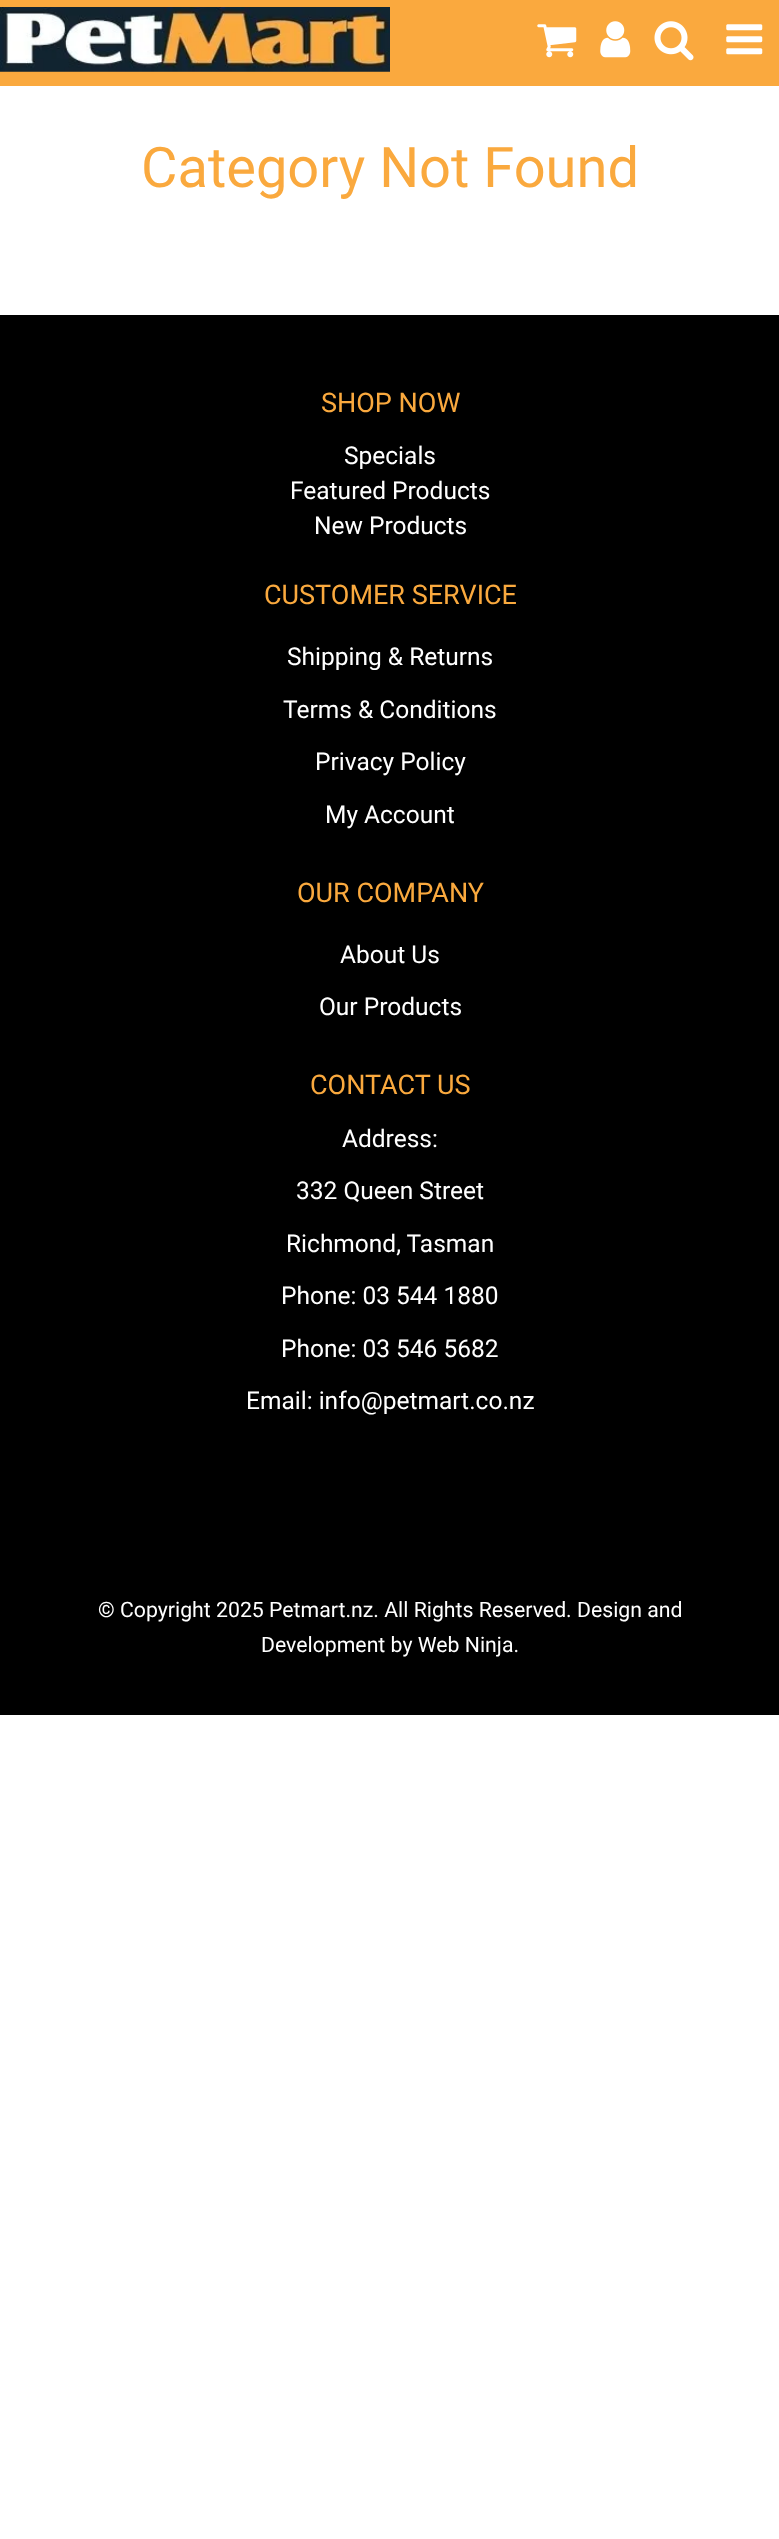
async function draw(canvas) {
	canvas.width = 779;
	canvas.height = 2539;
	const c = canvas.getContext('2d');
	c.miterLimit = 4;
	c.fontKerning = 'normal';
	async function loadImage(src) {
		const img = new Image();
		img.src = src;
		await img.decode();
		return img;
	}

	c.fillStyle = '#fff';
	c.fillRect(0, 0, 779, 2539);
	c.fillStyle = '#faa93e';
	c.fillRect(0, 0, 779, 86);
	c.drawImage(await loadImage('img1.png'), 0, 7, 390, 65);
	c.drawImage(await loadImage('img2.png'), 537, 24, 40, 34);
	c.drawImage(await loadImage('img3.png'), 600, 21, 31, 37);
	c.drawImage(await loadImage('img4.png'), 654, 21, 40, 40);
	c.drawImage(await loadImage('img5.png'), 726, 24, 37, 31);
	c.font = '56px Roboto';
	c.fillText('Category Not Found', 141, 187);
	c.fillStyle = '#000';
	c.fillRect(0, 315, 779, 1400);
	c.font = '27px Roboto';
	c.fillStyle = '#faa93e';
	c.fillText('SHOP NOW', 321, 412);
	c.font = '24.5px Roboto';
	c.fillStyle = '#fff';
	for (const [text, x, y] of [
		['Specials', 344, 464],
		['Featured Products', 290, 499],
		['New Products', 314, 534],
	]) {
		c.fillText(text, x, y);
	}
	c.font = '27px Roboto';
	c.fillStyle = '#faa93e';
	c.fillText('CUSTOMER SERVICE', 264, 604);
	c.font = '24.5px Roboto';
	c.fillStyle = '#fff';
	for (const [text, x, y] of [
		['Shipping & Returns', 287, 665],
		['Terms & Conditions', 283, 718],
		['Privacy Policy', 315, 770],
		['My Account', 325, 823],
	]) {
		c.fillText(text, x, y);
	}
	c.font = '27px Roboto';
	c.fillStyle = '#faa93e';
	c.fillText('OUR COMPANY', 297, 902);
	c.font = '24.5px Roboto';
	c.fillStyle = '#fff';
	c.fillText('About Us', 340, 963);
	c.fillText('Our Products', 319, 1015);
	c.font = '27px Roboto';
	c.fillStyle = '#faa93e';
	c.fillText('CONTACT US', 310, 1094);
	c.font = '24.5px Roboto';
	c.fillStyle = '#fff';
	for (const [text, x, y] of [
		['Address:', 342, 1147],
		['332 Queen Street', 296, 1199],
		['Richmond, Tasman', 286, 1252],
		['Phone: 03 544 1880', 281, 1304],
		['Phone: 03 546 5682', 281, 1357],
		['Email: info@petmart.co.nz', 246, 1409],
	]) {
		c.fillText(text, x, y);
	}
	c.font = '21.25px Roboto';
	c.fillText('© Copyright 2025 Petmart.nz. All Rights Reserved. Design and', 98, 1617);
	c.fillText('Development by Web Ninja.', 261, 1652);
}

draw(document.querySelector('canvas'));
